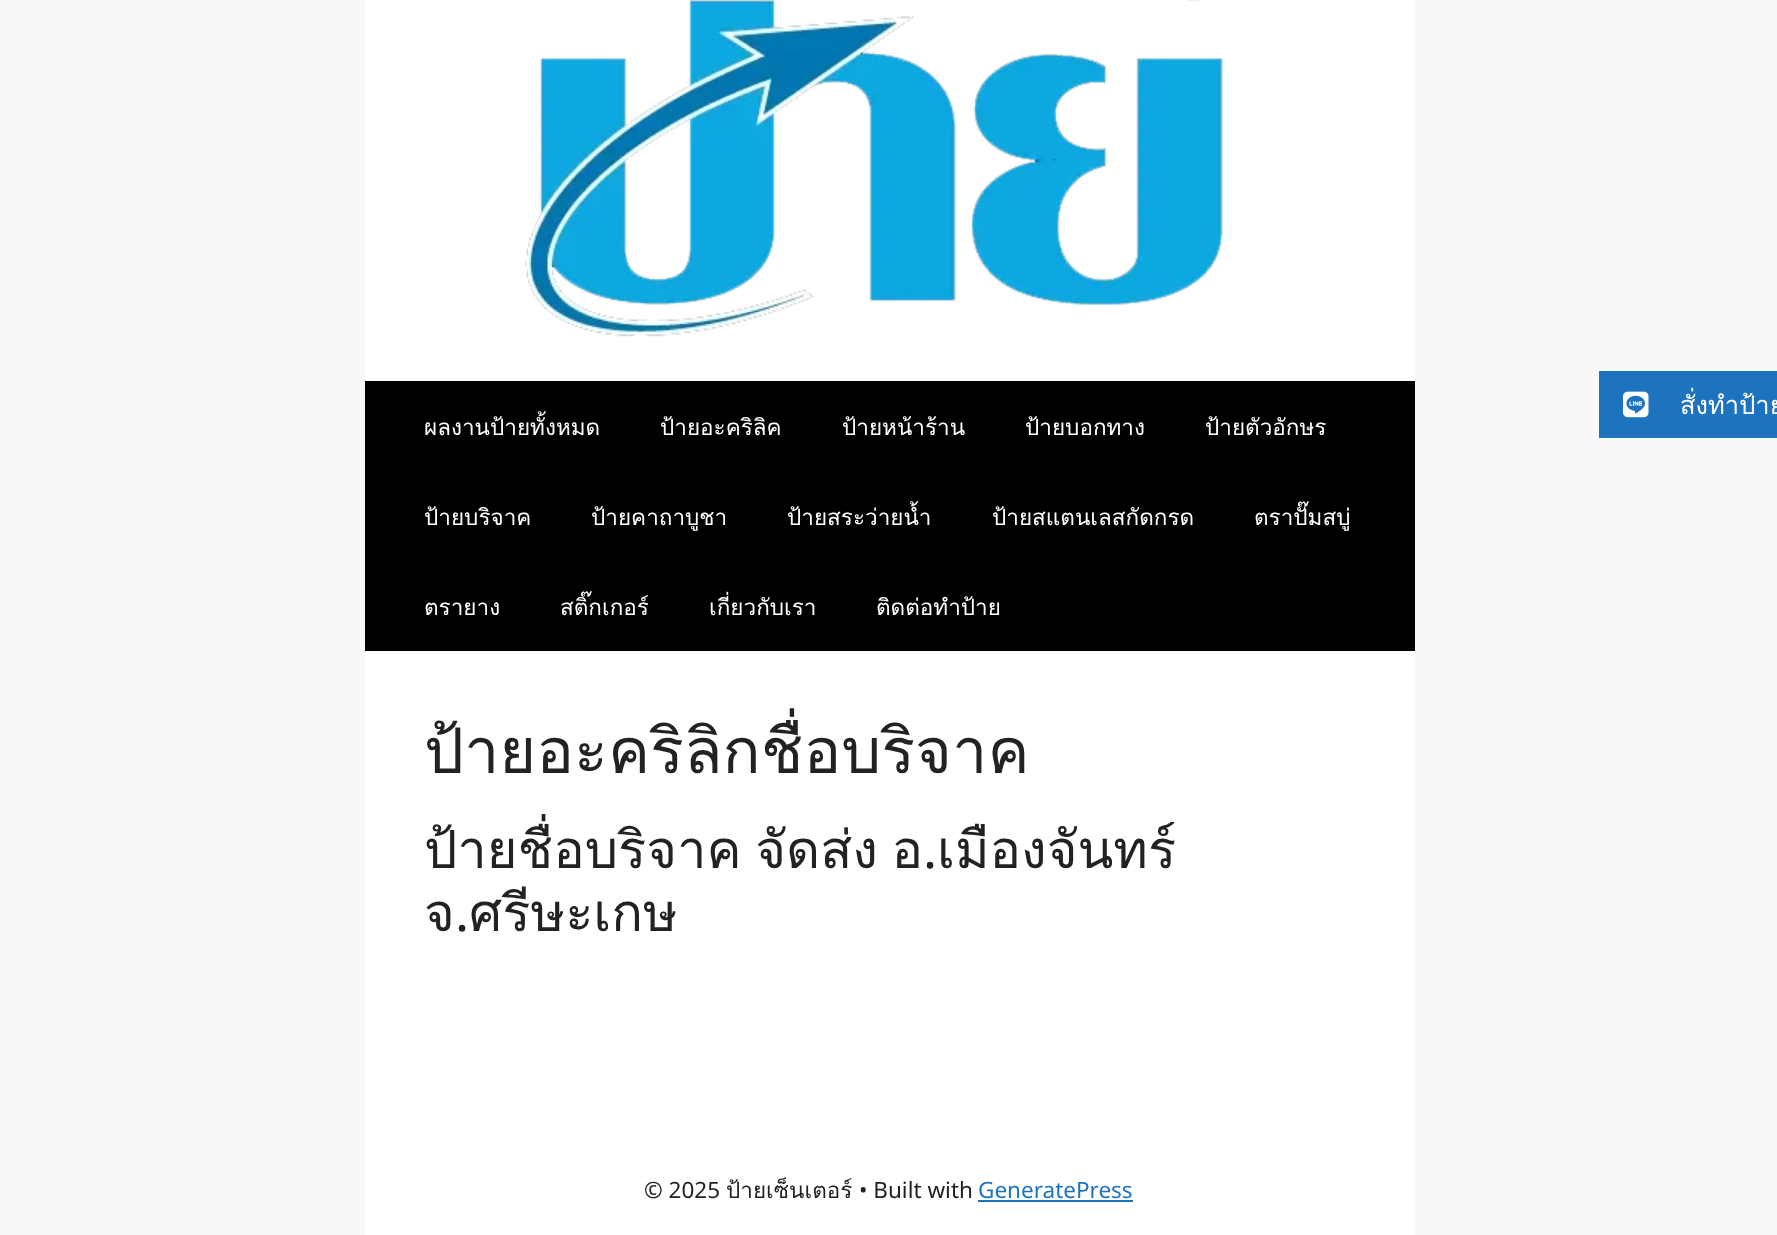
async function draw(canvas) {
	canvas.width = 1777;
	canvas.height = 1235;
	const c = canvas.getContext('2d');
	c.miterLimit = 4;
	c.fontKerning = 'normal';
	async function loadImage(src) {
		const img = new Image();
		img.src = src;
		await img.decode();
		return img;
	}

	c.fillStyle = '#f7f8f9';
	c.fillRect(0, 0, 1777, 1235);
	c.fillStyle = '#fff';
	c.fillRect(365, 0, 1050, 381);
	c.drawImage(await loadImage('img1.png'), 525, 0, 698, 337);
	c.fillStyle = '#1e73be';
	c.fillRect(1599, 371, 178, 67);
	c.drawImage(await loadImage('img2.png'), 1623, 391, 26, 27);
	c.font = '25.5px Loma';
	c.fillStyle = '#fff';
	c.fillText('สั่งทำป้าย', 1680, 414);
	c.fillStyle = '#000';
	c.fillRect(365, 381, 1050, 270);
	c.font = '22.5px Loma';
	c.fillStyle = '#fff';
	for (const [text, x, y] of [
		['ผลงานป้ายทั้งหมด', 424, 435],
		['ป้ายอะคริลิค', 660, 435],
		['ป้ายหน้าร้าน', 842, 435],
		['ป้ายบอกทาง', 1025, 435],
		['ป้ายตัวอักษร', 1205, 435],
		['ป้ายบริจาค', 424, 525],
		['ป้ายคาถาบูชา', 591, 525],
		['ป้ายสระว่ายน้ำ', 787, 525],
		['ป้ายสแตนเลสกัดกรด', 992, 525],
		['ตราปั๊มสบู่', 1254, 525],
		['ตรายาง', 424, 615],
		['สติ๊กเกอร์', 560, 615],
		['เกี่ยวกับเรา', 709, 615],
		['ติดต่อทำป้าย', 876, 615],
	]) {
		c.fillText(text, x, y);
	}
	c.fillRect(365, 651, 1050, 584);
	c.font = '63px Loma';
	c.fillStyle = '#222';
	c.fillText('ป้ายอะคริลิกชื่อบริจาค', 424, 773);
	c.wordSpacing = '-4px';
	c.font = '52.5px Loma';
	c.fillText('ป้ายชื่อบริจาค จัดส่ง อ', 424, 868);
	c.wordSpacing = '0px';
	c.font = '52.5px Noto Sans';
	c.fillText('.', 923, 868);
	c.font = '52.5px Loma';
	c.fillText('เมืองจันทร์', 937, 868);
	c.fillText('จ', 424, 931);
	c.font = '52.5px Noto Sans';
	c.fillText('.', 455, 931);
	c.font = '52.5px Loma';
	c.fillText('ศรีษะเกษ', 469, 931);
	c.font = '22.5px Noto Sans';
	c.fillText('© 2025', 644, 1198);
	c.font = '22.5px Loma';
	c.fillText('ป้ายเซ็นเตอร์', 726, 1198);
	c.font = '22.5px Noto Sans';
	c.fillText('• Built with', 859, 1198);
	c.fillStyle = '#1e73be';
	c.fillText('GeneratePress', 978, 1198);
	c.fillRect(978, 1200, 155, 2);
}

draw(document.querySelector('canvas'));
